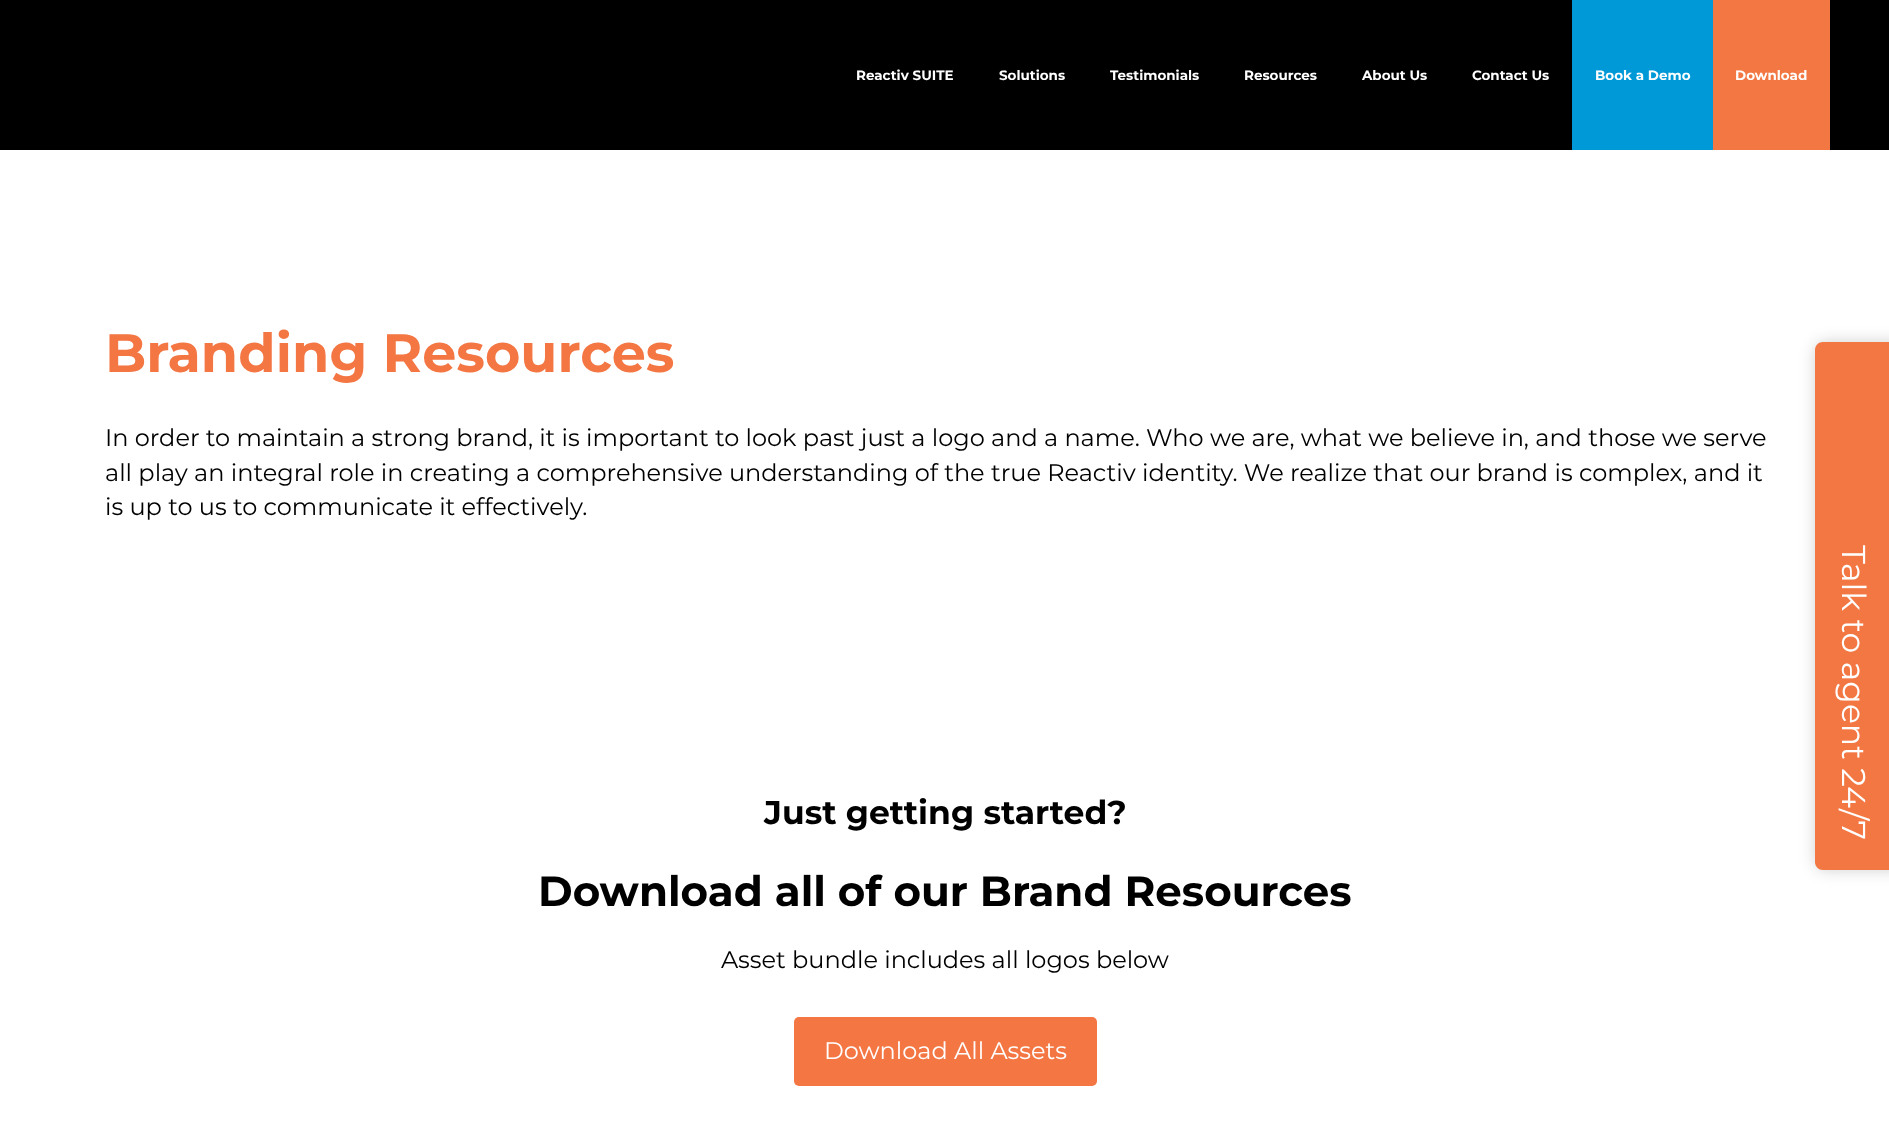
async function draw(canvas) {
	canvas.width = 1889;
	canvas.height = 1139;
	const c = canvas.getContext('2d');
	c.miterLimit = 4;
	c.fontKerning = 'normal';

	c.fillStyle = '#fff';
	c.fillRect(0, 0, 1889, 1139);
	c.fillStyle = '#000';
	c.fillRect(0, 0, 1889, 150);
	c.font = 'bold 13.5px Montserrat';
	c.fillStyle = '#fff';
	for (const [text, x, y] of [
		['Reactiv SUITE', 856, 80],
		['Solutions', 999, 80],
		['Testimonials', 1110, 80],
		['Resources', 1244, 80],
		['About Us', 1362, 80],
		['Contact Us', 1472, 80],
	]) {
		c.fillText(text, x, y);
	}
	c.fillStyle = '#0099d7';
	c.fillRect(1572, 0, 141, 150);
	c.fillStyle = '#fff';
	c.fillText('Book a Demo', 1595, 80);
	c.fillStyle = '#f37743';
	c.fillRect(1713, 0, 117, 150);
	c.fillStyle = '#fff';
	c.fillText('Download', 1735, 80);
	c.font = 'bold 54px Montserrat';
	c.fillStyle = '#f37643';
	c.fillText('Branding Resources', 105, 372);
	c.font = '24px Montserrat';
	c.fillStyle = '#000';
	for (const [text, x, y] of [
		['In order to maintain a strong brand, it is important to look past just a logo and a name. Who we are, what we believe in, and those we serve', 105, 446],
		['all play an integral role in creating a comprehensive understanding of the true Reactiv identity. We realize that our brand is complex, and it', 105, 481],
		['is up to us to communicate it effectively.', 105, 515],
	]) {
		c.fillText(text, x, y);
	}
	c.font = 'bold 33px Montserrat';
	c.fillText('Just getting started?', 764, 824);
	c.font = 'bold 42px Montserrat';
	c.fillText('Download all of our Brand Resources', 538, 906);
	c.font = '24px Montserrat';
	c.fillText('Asset bundle includes all logos below', 721, 968);
	c.fillStyle = '#f37643';
	c.beginPath();
	c.roundRect(794, 1017, 303, 69, 5);
	c.fill();
	c.fillStyle = '#fff';
	c.fillText('Download All Assets', 824, 1059);
	c.fillStyle = '#13131333';
	c.filter = 'blur(7.5px)';
	c.beginPath();
	c.roundRect(1815, 342, 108, 528, 11);
	c.fill();
	c.filter = 'none';
	c.fillStyle = '#f37743';
	c.beginPath();
	c.moveTo(1823, 342);
	c.lineTo(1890, 342);
	c.lineTo(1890, 870);
	c.lineTo(1823, 870);
	c.bezierCurveTo(1818.5, 870, 1815, 866.5, 1815, 862);
	c.lineTo(1815, 350);
	c.bezierCurveTo(1815, 345.5, 1818.5, 342, 1823, 342);
	c.closePath();
	c.fill();
	c.font = '33px Montserrat';
	c.fillStyle = '#fff';
	c.save();
	c.translate(1842, 545);
	c.rotate(90 * Math.PI / 180);
	c.fillText('Talk to agent 24/7', 0, 0);
	c.restore();
}

draw(document.querySelector('canvas'));
